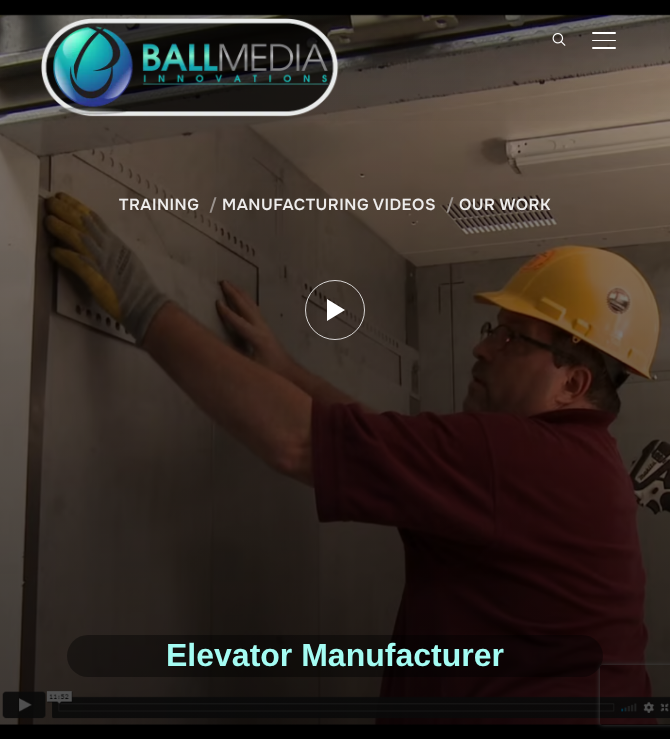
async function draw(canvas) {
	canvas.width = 670;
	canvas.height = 739;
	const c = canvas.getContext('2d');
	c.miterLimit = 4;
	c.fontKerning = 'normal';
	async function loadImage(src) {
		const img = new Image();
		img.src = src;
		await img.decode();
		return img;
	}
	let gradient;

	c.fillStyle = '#000';
	c.fillRect(0, 0, 670, 739);
	c.drawImage(await loadImage('img3.png'), 0, 14, 670, 711);
	gradient = c.createLinearGradient(335, 0, 335, 739);
	gradient.addColorStop(0, '#00000014');
	gradient.addColorStop(1, '#00000066');
	c.fillStyle = gradient;
	c.fillRect(0, 15, 670, 710);
	c.save();
	c.beginPath();
	c.moveTo(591, 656);
	c.lineTo(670, 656);
	c.lineTo(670, 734);
	c.lineTo(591, 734);
	c.closePath();
	c.moveTo(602, 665);
	c.lineTo(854, 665);
	c.bezierCurveTo(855, 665, 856, 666, 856, 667);
	c.lineTo(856, 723);
	c.bezierCurveTo(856, 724, 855, 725, 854, 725);
	c.lineTo(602, 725);
	c.bezierCurveTo(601, 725, 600, 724, 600, 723);
	c.lineTo(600, 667);
	c.bezierCurveTo(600, 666, 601, 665, 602, 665);
	c.closePath();
	c.clip('evenodd');
	c.fillStyle = '#808080';
	c.filter = 'blur(2.5px)';
	c.beginPath();
	c.roundRect(600, 665, 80, 60, 2);
	c.fill();
	c.filter = 'none';
	c.restore();
	gradient = c.createLinearGradient(335, 0, 335, 739);
	gradient.addColorStop(0, '#0000004d');
	gradient.addColorStop(1, '#00000080');
	c.fillStyle = gradient;
	c.fillRect(0, 14, 670, 715);
	gradient = c.createLinearGradient(335, 0, 335, 136);
	gradient.addColorStop(0.01, '#00000033');
	gradient.addColorStop(1, '#00000000');
	c.fillStyle = gradient;
	c.fillRect(0, 14, 670, 107);
	c.drawImage(await loadImage('img1.png'), 41, 18, 298, 99);
	c.drawImage(await loadImage('img2.png'), 552, 33, 14, 13);
	c.fillStyle = '#fff';
	c.beginPath();
	c.roundRect(592, 32, 24, 2, 1);
	c.fill();
	c.beginPath();
	c.roundRect(592, 40, 24, 1, 0.5);
	c.fill();
	c.beginPath();
	c.roundRect(592, 47, 24, 2, 1);
	c.fill();
	c.letterSpacing = '0.5px';
	c.font = '600 16px Onest';
	c.fillStyle = '#edeceb';
	c.fillText('TRAINING', 119, 210);
	c.fillStyle = '#9a938e';
	c.fillText('/', 209, 210);
	c.fillStyle = '#edeceb';
	c.fillText('MANUFACTURING VIDEOS', 222, 210);
	c.fillStyle = '#9a938e';
	c.fillText('/', 446, 210);
	c.fillStyle = '#edeceb';
	c.fillText('OUR WORK', 459, 210);
	c.fillStyle = '#00000066';
	c.beginPath();
	c.roundRect(67, 635, 536, 42, 21);
	c.fill();
	c.letterSpacing = '0px';
	c.font = 'bold 32px Liberation Sans';
	c.fillStyle = '#a4fcf3';
	c.fillText('Elevator Manufacturer', 166, 666);
	c.fillStyle = '#fff';
	c.beginPath();
	c.moveTo(327, 299);
	c.lineTo(345, 310);
	c.lineTo(327, 321);
	c.closePath();
	c.fill();
	c.beginPath();
	c.arc(335, 310, 29.5, 0, 2 * Math.PI);
	c.strokeStyle = '#ffffffcc';
	c.stroke();
}

draw(document.querySelector('canvas'));
